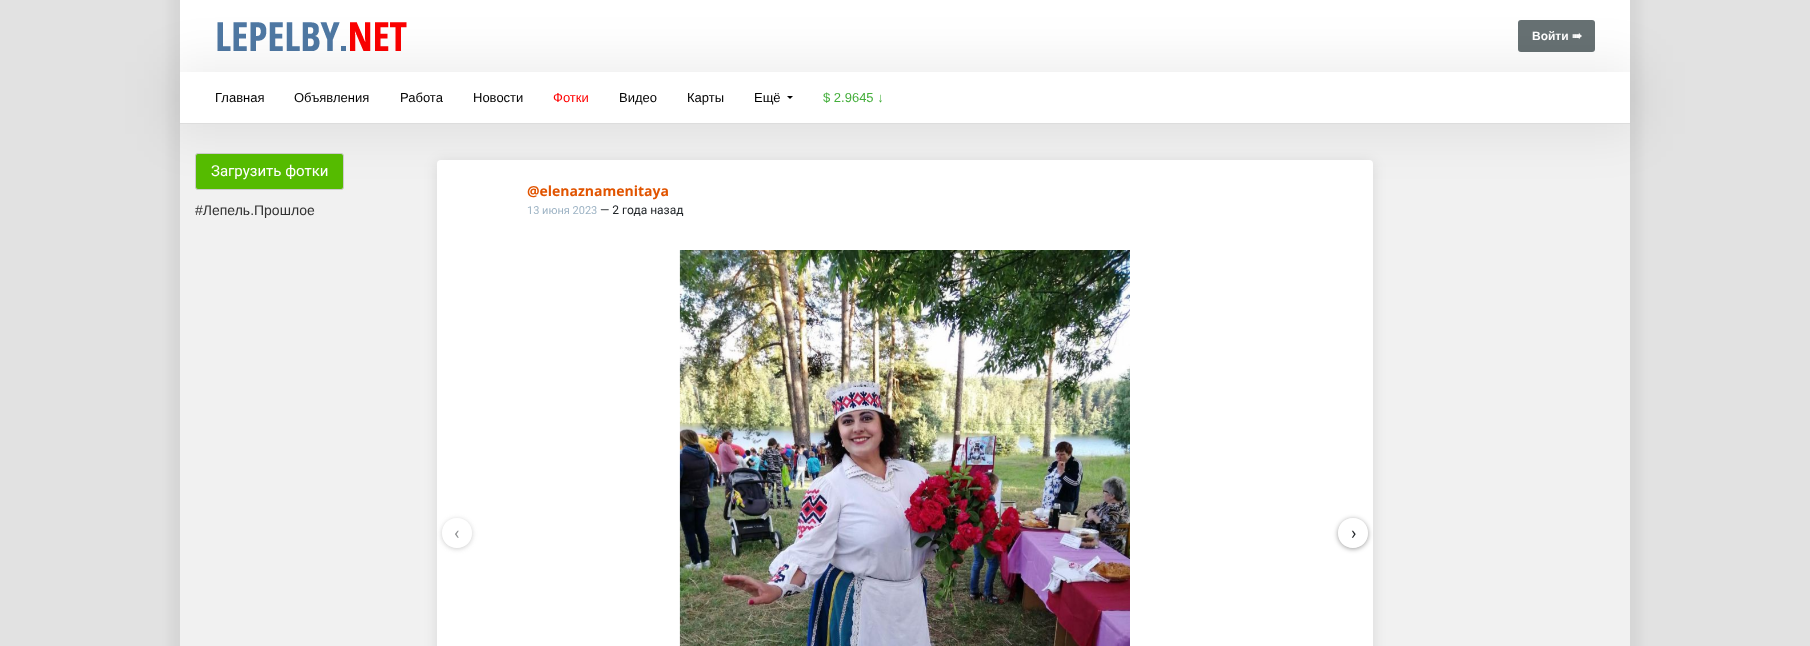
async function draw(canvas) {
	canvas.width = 1810;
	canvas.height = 646;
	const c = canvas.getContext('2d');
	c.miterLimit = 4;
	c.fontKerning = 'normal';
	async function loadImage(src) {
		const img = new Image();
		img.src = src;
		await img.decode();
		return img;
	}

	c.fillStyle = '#e2e2e2';
	c.fillRect(0, 0, 1810, 646);
	c.fillStyle = '#0000000d';
	c.filter = 'blur(5px)';
	c.beginPath();
	c.rect(170, -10, 1470, 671);
	c.fill();
	c.filter = 'none';
	c.fillStyle = '#fff';
	c.fillRect(180, 0, 1450, 123);
	c.drawImage(await loadImage('img1.png'), 217, 22, 190, 29);
	c.fillStyle = '#677173';
	c.beginPath();
	c.roundRect(1518, 20, 77, 32, 3);
	c.fill();
	c.font = 'bold 12px Liberation Sans';
	c.fillStyle = '#fff';
	c.fillText('Войти', 1532, 40);
	c.font = 'bold 12px DejaVu Sans';
	c.fillText('➠', 1572, 40);
	c.fillStyle = '#f1f1f1';
	c.fillRect(180, 124, 1450, 522);
	c.save();
	c.beginPath();
	c.moveTo(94, 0);
	c.lineTo(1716, 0);
	c.lineTo(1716, 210);
	c.lineTo(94, 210);
	c.closePath();
	c.moveTo(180, 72);
	c.lineTo(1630, 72);
	c.lineTo(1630, 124);
	c.lineTo(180, 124);
	c.closePath();
	c.clip('evenodd');
	c.fillStyle = '#00000012';
	c.filter = 'blur(25px)';
	c.beginPath();
	c.rect(170, 62, 1470, 72);
	c.fill();
	c.filter = 'none';
	c.restore();
	c.fillStyle = '#ddd';
	c.fillRect(180, 123, 1450, 1);
	c.font = '13px Liberation Sans';
	c.fillStyle = '#000';
	for (const [text, x, y] of [
		['Главная', 215, 102],
		['Объявления', 294, 102],
		['Работа', 400, 102],
		['Новости', 473, 102],
	]) {
		c.fillText(text, x, y);
	}
	c.fillStyle = '#f00';
	c.fillText('Фотки', 553, 102);
	c.fillStyle = '#000';
	for (const [text, x, y] of [
		['Видео', 619, 102],
		['Карты', 687, 102],
		['Ещё', 754, 102],
	]) {
		c.fillText(text, x, y);
	}
	c.beginPath();
	c.moveTo(787, 96);
	c.lineTo(793, 96);
	c.lineTo(790, 99);
	c.closePath();
	c.fill();
	c.fillStyle = '#44ae3b';
	c.fillText('$ 2.9645 ↓', 823, 102);
	c.fillStyle = '#5b0';
	c.beginPath();
	c.roundRect(195.5, 153.5, 148, 36, 2.5);
	c.fill();
	c.strokeStyle = '#ccc';
	c.stroke();
	c.font = '15px Roboto';
	c.fillStyle = '#fff';
	c.fillText('Загрузить фотки', 211, 176);
	c.font = '14px Liberation Sans';
	c.fillStyle = '#333';
	c.fillText('#Лепель.Прошлое', 195, 215);
	c.fillStyle = '#0000001a';
	c.filter = 'blur(7px)';
	c.beginPath();
	c.roundRect(437, 162, 936, 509, 4);
	c.fill();
	c.filter = 'none';
	c.fillStyle = '#fff';
	c.beginPath();
	c.roundRect(437, 160, 936, 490, 4);
	c.fill();
	c.font = 'bold 14px Open Sans';
	c.fillStyle = '#e15400';
	c.fillText('@elenaznamenitaya', 527, 196);
	c.font = '11px Roboto';
	c.fillStyle = '#9db3c4';
	c.fillText('13 июня 2023', 527, 214);
	c.font = '12px Roboto';
	c.fillStyle = '#212529';
	c.fillText('— 2 года назад', 600, 214);
	c.drawImage(await loadImage('img2.png'), 679, 250, 451, 396);
	c.save();
	c.beginPath();
	c.moveTo(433, 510);
	c.lineTo(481, 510);
	c.lineTo(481, 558);
	c.lineTo(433, 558);
	c.closePath();
	c.moveTo(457, 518);
	c.bezierCurveTo(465.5, 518, 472, 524.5, 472, 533);
	c.bezierCurveTo(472, 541.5, 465.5, 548, 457, 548);
	c.bezierCurveTo(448.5, 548, 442, 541.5, 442, 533);
	c.bezierCurveTo(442, 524.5, 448.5, 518, 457, 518);
	c.closePath();
	c.clip('evenodd');
	c.fillStyle = '#80808066';
	c.filter = 'blur(2.5px)';
	c.beginPath();
	c.roundRect(442, 519, 30, 30, 15);
	c.fill();
	c.filter = 'none';
	c.restore();
	c.fillStyle = '#ffffff80';
	c.beginPath();
	c.arc(457, 533, 15, 0, 2 * Math.PI);
	c.fill();
	c.font = '18px Roboto';
	c.fillStyle = '#909294';
	c.fillText('‹', 454, 539);
	c.save();
	c.beginPath();
	c.moveTo(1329, 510);
	c.lineTo(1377, 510);
	c.lineTo(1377, 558);
	c.lineTo(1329, 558);
	c.closePath();
	c.moveTo(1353, 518);
	c.bezierCurveTo(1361.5, 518, 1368, 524.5, 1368, 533);
	c.bezierCurveTo(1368, 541.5, 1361.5, 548, 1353, 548);
	c.bezierCurveTo(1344.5, 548, 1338, 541.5, 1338, 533);
	c.bezierCurveTo(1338, 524.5, 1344.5, 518, 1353, 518);
	c.closePath();
	c.clip('evenodd');
	c.fillStyle = '#00000066';
	c.filter = 'blur(2.5px)';
	c.beginPath();
	c.roundRect(1338, 519, 30, 30, 15);
	c.fill();
	c.filter = 'none';
	c.restore();
	c.fillStyle = '#ffffff80';
	c.beginPath();
	c.arc(1353, 533, 15, 0, 2 * Math.PI);
	c.fill();
	c.fillStyle = '#212529';
	c.fillText('›', 1351, 539);
}

draw(document.querySelector('canvas'));
